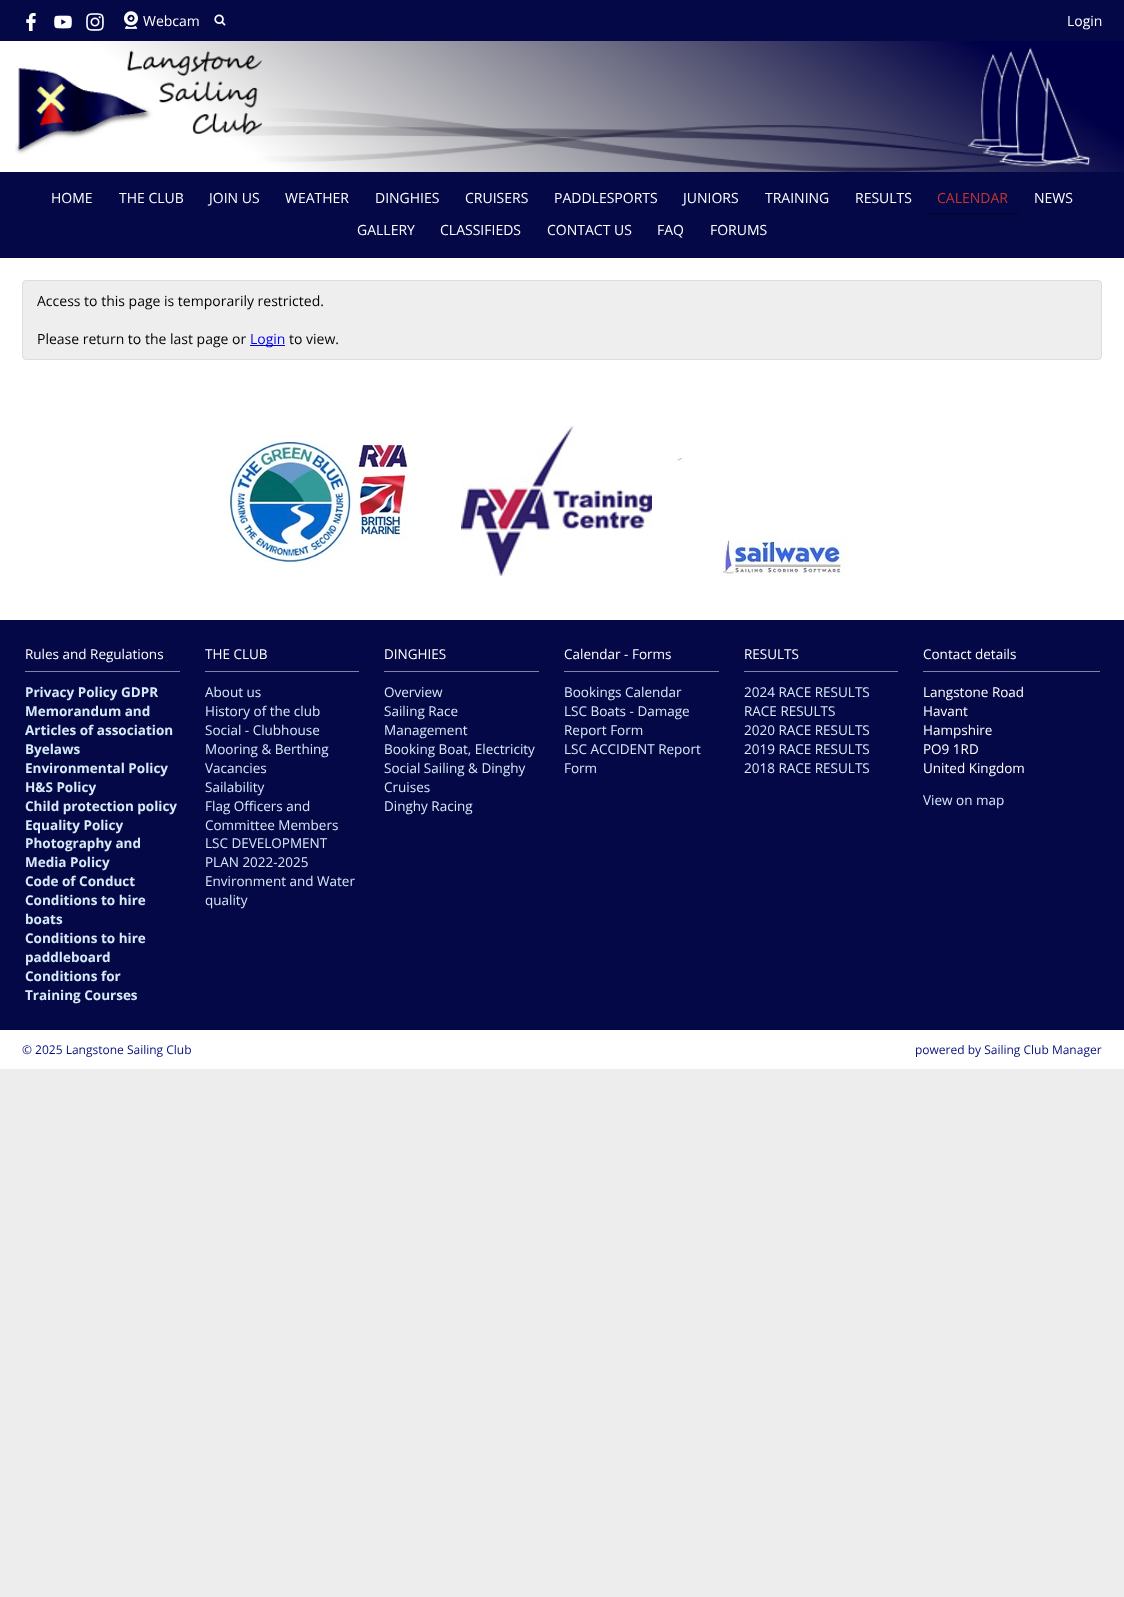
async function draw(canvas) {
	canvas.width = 1124;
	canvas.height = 1597;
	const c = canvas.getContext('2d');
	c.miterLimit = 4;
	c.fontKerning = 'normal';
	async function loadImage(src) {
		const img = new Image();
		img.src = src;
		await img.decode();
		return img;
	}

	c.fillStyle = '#ededed';
	c.fillRect(0, 0, 1124, 1597);
	c.fillStyle = '#040847';
	c.fillRect(0, 0, 1124, 41);
	c.drawImage(await loadImage('img1.png'), 26, 13, 10, 18);
	c.drawImage(await loadImage('img2.png'), 54, 15, 18, 14);
	c.drawImage(await loadImage('img3.png'), 86, 13, 18, 18);
	c.drawImage(await loadImage('img4.png'), 124, 11, 14, 18);
	c.font = '14px Open Sans';
	c.fillStyle = '#fff';
	c.fillText('Webcam', 143, 26);
	c.drawImage(await loadImage('img5.png'), 214, 14, 12, 12);
	c.fillText('Login', 1067, 26);
	c.fillRect(0, 41, 15, 131);
	c.drawImage(await loadImage('img6.png'), 15, 41, 1109, 131);
	c.fillStyle = '#040847';
	c.fillRect(0, 172, 1124, 86);
	c.fillStyle = '#fff';
	for (const [text, x, y] of [
		['HOME', 51, 203],
		['THE CLUB', 119, 203],
		['JOIN US', 209, 203],
		['WEATHER', 285, 203],
		['DINGHIES', 375, 203],
		['CRUISERS', 465, 203],
		['PADDLESPORTS', 554, 203],
		['JUNIORS', 683, 203],
		['TRAINING', 765, 203],
		['RESULTS', 855, 203],
	]) {
		c.fillText(text, x, y);
	}
	c.fillStyle = '#030636';
	c.fillRect(926, 213, 93, 2);
	c.fillStyle = '#c53731';
	c.fillText('CALENDAR', 937, 203);
	c.fillStyle = '#fff';
	for (const [text, x, y] of [
		['NEWS', 1034, 203],
		['GALLERY', 357, 235],
		['CLASSIFIEDS', 440, 235],
		['CONTACT US', 547, 235],
		['FAQ', 657, 235],
		['FORUMS', 710, 235],
	]) {
		c.fillText(text, x, y);
	}
	c.fillRect(0, 258, 1124, 362);
	c.fillStyle = '#eee';
	c.beginPath();
	c.roundRect(22.5, 280.5, 1079, 79, 3.5);
	c.fill();
	c.strokeStyle = '#ddd';
	c.stroke();
	c.fillStyle = '#000';
	c.fillText('Access to this page is temporarily restricted.', 37, 306);
	c.fillText('Please return to the last page or', 37, 344);
	c.fillStyle = '#00e';
	c.fillRect(250, 345, 35, 1);
	c.fillText('Login', 250, 344);
	c.fillStyle = '#000';
	c.fillText('to view.', 289, 344);
	c.drawImage(await loadImage('img7.png'), 226, 441, 189, 129);
	c.drawImage(await loadImage('img8.png'), 461, 426, 191, 150);
	c.drawImage(await loadImage('img9.png'), 677, 458, 172, 118);
	c.fillStyle = '#040847';
	c.fillRect(0, 620, 1124, 410);
	c.fillStyle = '#8284a3';
	c.fillRect(25, 671, 155, 1);
	c.font = '13.5px Open Sans';
	c.fillStyle = '#fff';
	c.fillText('Rules and Regulations', 25, 659);
	c.font = 'bold 13.5px Open Sans';
	c.fillStyle = '#d6eaf8';
	for (const [text, x, y] of [
		['Privacy Policy GDPR', 25, 697],
		['Memorandum and', 25, 716],
		['Articles of association', 25, 735],
		['Byelaws', 25, 754],
		['Environmental Policy', 25, 773],
		['H&S Policy', 25, 792],
		['Child protection policy', 25, 811],
		['Equality Policy', 25, 830],
		['Photography and', 25, 848],
		['Media Policy', 25, 867],
		['Code of Conduct', 25, 886],
		['Conditions to hire', 25, 905],
		['boats', 25, 924],
		['Conditions to hire', 25, 943],
		['paddleboard', 25, 962],
		['Conditions for', 25, 981],
		['Training Courses', 25, 1000],
	]) {
		c.fillText(text, x, y);
	}
	c.fillStyle = '#8284a3';
	c.fillRect(205, 671, 154, 1);
	c.font = '13.5px Open Sans';
	c.fillStyle = '#fff';
	c.fillText('THE CLUB', 205, 659);
	c.fillStyle = '#d6eaf8';
	for (const [text, x, y] of [
		['About us', 205, 697],
		['History of the club', 205, 716],
		['Social - Clubhouse', 205, 735],
		['Mooring & Berthing', 205, 754],
		['Vacancies', 205, 773],
		['Sailability', 205, 792],
		['Flag Officers and', 205, 811],
		['Committee Members', 205, 830],
		['LSC DEVELOPMENT', 205, 848],
		['PLAN 2022-2025', 205, 867],
		['Environment and Water', 205, 886],
		['quality', 205, 905],
	]) {
		c.fillText(text, x, y);
	}
	c.fillStyle = '#8284a3';
	c.fillRect(384, 671, 155, 1);
	c.fillStyle = '#fff';
	c.fillText('DINGHIES', 384, 659);
	c.fillStyle = '#d6eaf8';
	for (const [text, x, y] of [
		['Overview', 384, 697],
		['Sailing Race', 384, 716],
		['Management', 384, 735],
		['Booking Boat, Electricity', 384, 754],
		['Social Sailing & Dinghy', 384, 773],
		['Cruises', 384, 792],
		['Dinghy Racing', 384, 811],
	]) {
		c.fillText(text, x, y);
	}
	c.fillStyle = '#8284a3';
	c.fillRect(564, 671, 155, 1);
	c.fillStyle = '#fff';
	c.fillText('Calendar - Forms', 564, 659);
	c.fillStyle = '#d6eaf8';
	for (const [text, x, y] of [
		['Bookings Calendar', 564, 697],
		['LSC Boats - Damage', 564, 716],
		['Report Form', 564, 735],
		['LSC ACCIDENT Report', 564, 754],
		['Form', 564, 773],
	]) {
		c.fillText(text, x, y);
	}
	c.fillStyle = '#8284a3';
	c.fillRect(744, 671, 154, 1);
	c.fillStyle = '#fff';
	c.fillText('RESULTS', 744, 659);
	c.fillStyle = '#d6eaf8';
	for (const [text, x, y] of [
		['2024 RACE RESULTS', 744, 697],
		['RACE RESULTS', 744, 716],
		['2020 RACE RESULTS', 744, 735],
		['2019 RACE RESULTS', 744, 754],
		['2018 RACE RESULTS', 744, 773],
	]) {
		c.fillText(text, x, y);
	}
	c.fillStyle = '#8284a3';
	c.fillRect(923, 671, 177, 1);
	c.fillStyle = '#fff';
	for (const [text, x, y] of [
		['Contact details', 923, 659],
		['Langstone Road', 923, 697],
		['Havant', 923, 716],
		['Hampshire', 923, 735],
		['PO9 1RD', 923, 754],
		['United Kingdom', 923, 773],
	]) {
		c.fillText(text, x, y);
	}
	c.fillStyle = '#d6eaf8';
	c.fillText('View on map', 923, 805);
	c.fillStyle = '#fff';
	c.fillRect(0, 1030, 1124, 39);
	c.font = '12px Open Sans';
	c.fillStyle = '#070e7d';
	c.fillText('© 2025 Langstone Sailing Club', 22, 1054);
	c.fillText('powered by Sailing Club Manager', 915, 1054);
}

draw(document.querySelector('canvas'));
